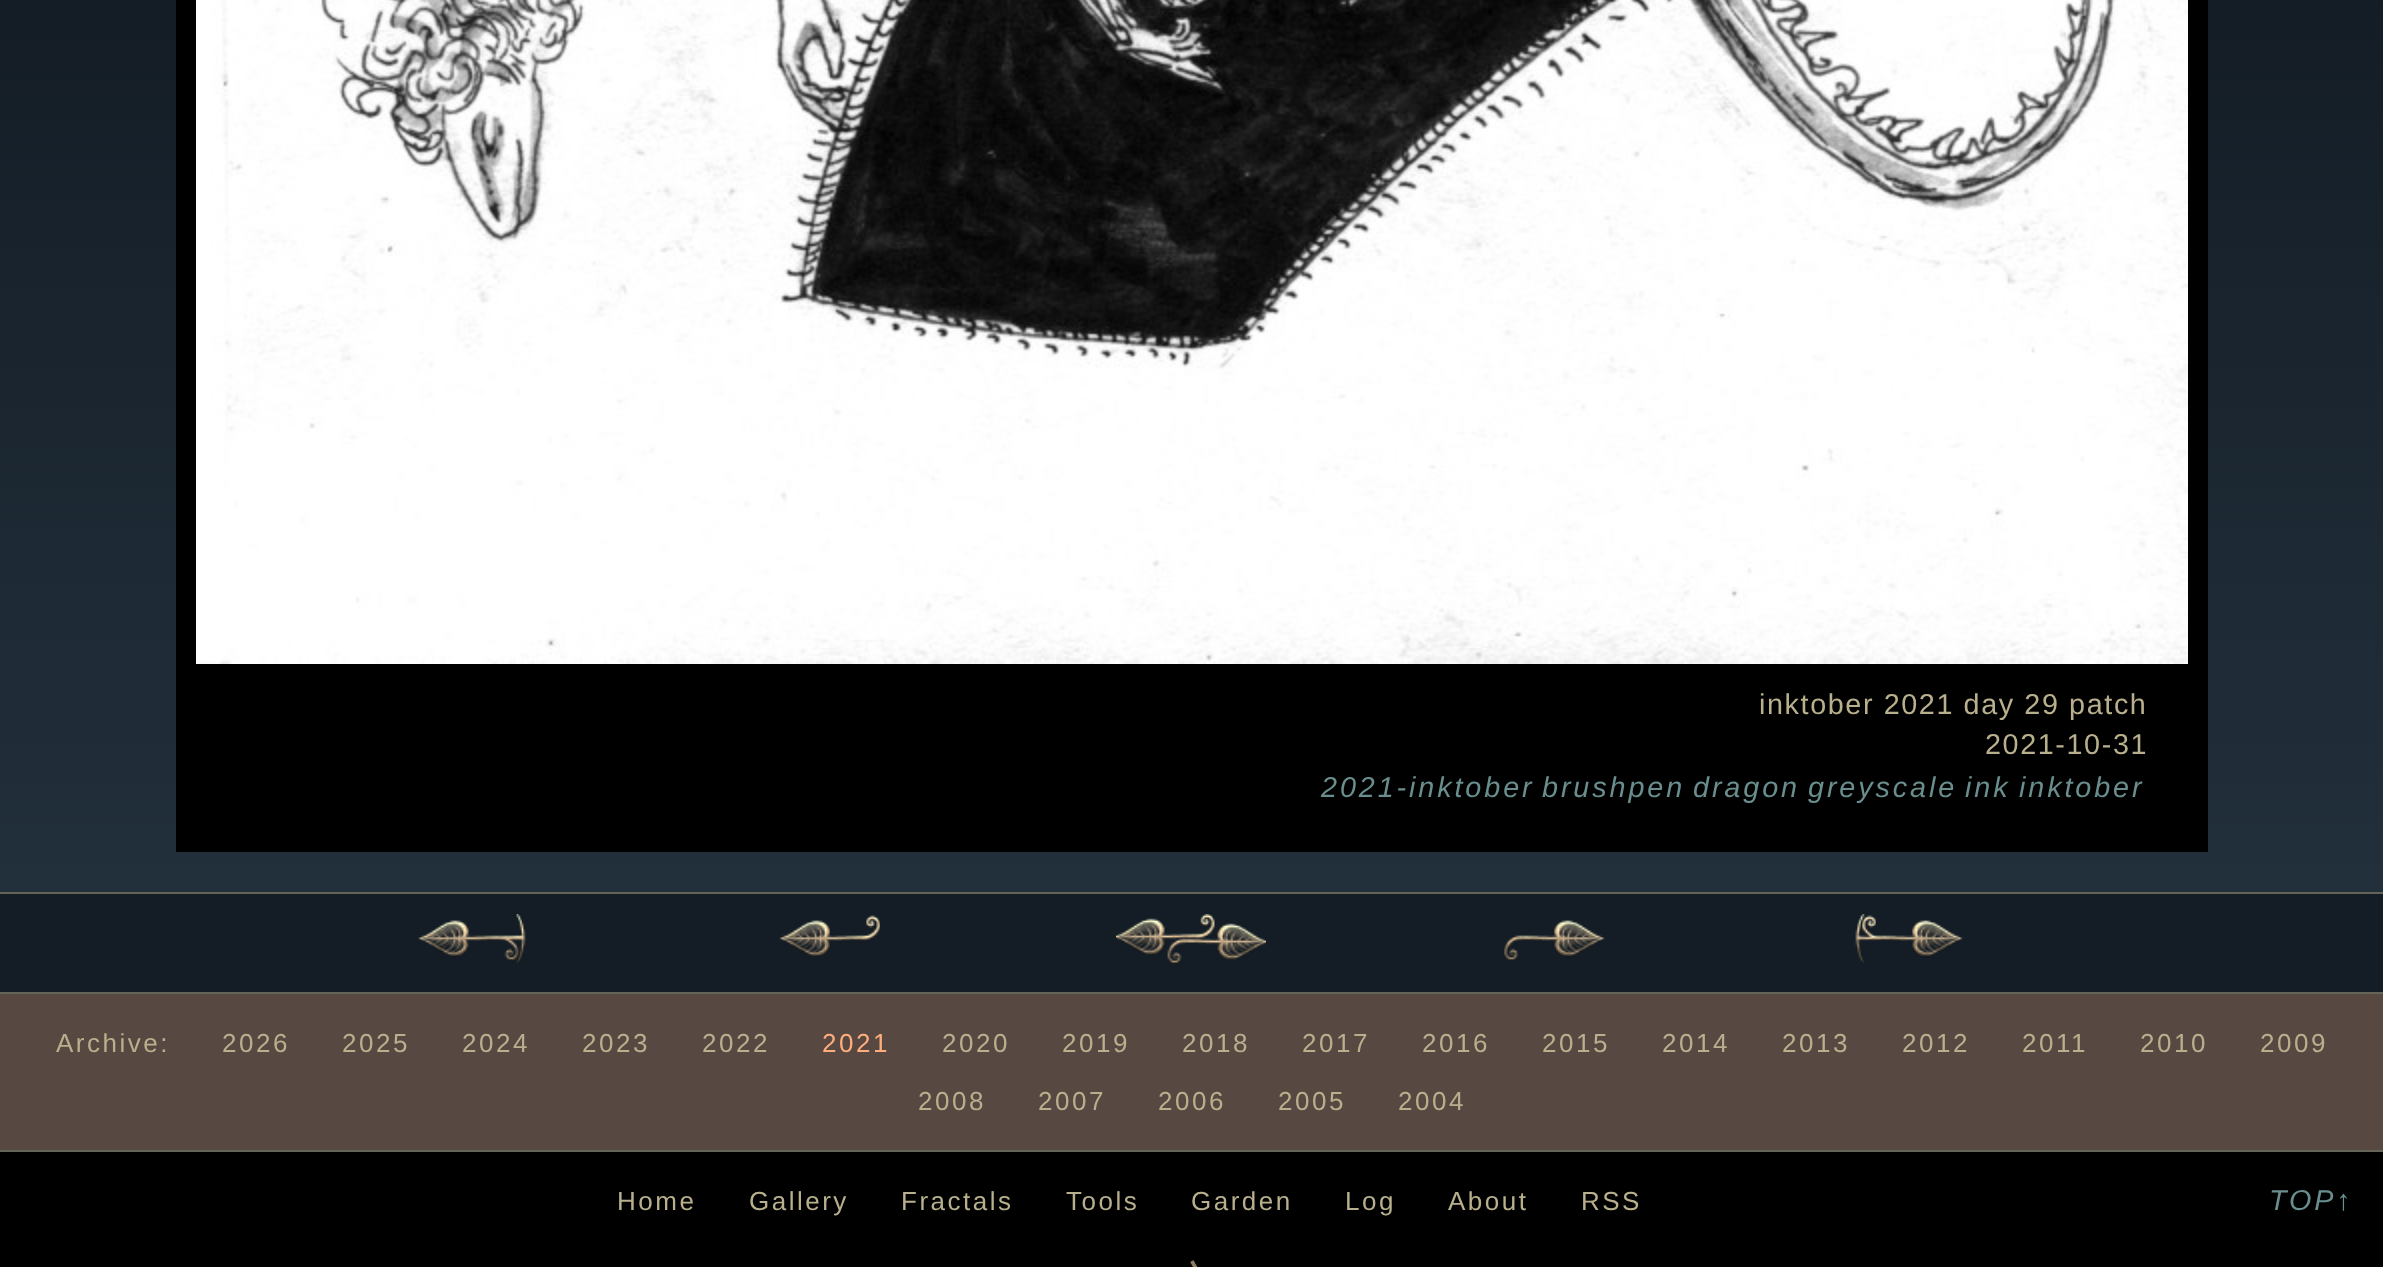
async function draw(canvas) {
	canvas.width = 2383;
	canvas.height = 1267;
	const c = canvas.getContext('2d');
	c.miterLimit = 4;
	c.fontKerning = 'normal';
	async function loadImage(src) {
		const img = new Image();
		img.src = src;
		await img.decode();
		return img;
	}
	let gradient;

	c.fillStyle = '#fff';
	c.fillRect(0, 0, 2383, 1267);
	gradient = c.createLinearGradient(1192, 0, 1192, 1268);
	gradient.addColorStop(0, '#141d26');
	gradient.addColorStop(1, '#283845');
	c.fillStyle = gradient;
	c.fillRect(0, 0, 2383, 892);
	c.fillStyle = '#000';
	c.fillRect(176, 0, 2032, 852);
	c.drawImage(await loadImage('img1.png'), 196, 0, 1992, 664);
	c.letterSpacing = '1.6px';
	c.font = '28.75px Liberation Sans';
	c.fillStyle = '#b8b08d';
	c.fillText('inktober 2021 day 29 patch', 1759, 714);
	c.fillText('2021-10-31', 1985, 754);
	c.letterSpacing = '2.9px';
	c.font = 'italic 28.75px Liberation Sans';
	c.fillStyle = '#6a8e8e';
	for (const [text, x, y] of [
		['2021-inktober', 1321, 797],
		['brushpen', 1542, 797],
		['dragon', 1693, 797],
		['greyscale', 1808, 797],
		['ink', 1965, 797],
		['inktober', 2019, 797],
	]) {
		c.fillText(text, x, y);
	}
	for (const [x, y, w, h, color] of [
		[0, 1152, 2383, 115, '#000'],
		[0, 894, 2383, 98, '#141d26'],
		[0, 892, 2383, 2, '#636657'],
	]) {
		c.fillStyle = color;
		c.fillRect(x, y, w, h);
	}
	c.drawImage(await loadImage('img2.png'), 418, 914, 108, 50);
	c.drawImage(await loadImage('img3.png'), 779, 915, 101, 42);
	c.drawImage(await loadImage('img4.png'), 1116, 914, 150, 50);
	c.drawImage(await loadImage('img5.png'), 1504, 920, 101, 41);
	c.drawImage(await loadImage('img6.png'), 1855, 914, 108, 49);
	for (const [x, y, w, h, color] of [
		[0, 992, 2383, 2, '#636657'],
		[0, 994, 2383, 156, '#584842'],
		[0, 1150, 2383, 2, '#636657'],
	]) {
		c.fillStyle = color;
		c.fillRect(x, y, w, h);
	}
	c.letterSpacing = '2.5px';
	c.font = '26px Liberation Sans';
	c.fillStyle = '#b8b08d';
	for (const [text, x, y] of [
		['Archive:', 56, 1052],
		['2026', 222, 1052],
		['2025', 342, 1052],
		['2024', 462, 1052],
		['2023', 582, 1052],
		['2022', 702, 1052],
	]) {
		c.fillText(text, x, y);
	}
	c.fillStyle = '#ffad7c';
	c.fillText('2021', 822, 1052);
	c.fillStyle = '#b8b08d';
	for (const [text, x, y] of [
		['2020', 942, 1052],
		['2019', 1062, 1052],
		['2018', 1182, 1052],
		['2017', 1302, 1052],
		['2016', 1422, 1052],
		['2015', 1542, 1052],
		['2014', 1662, 1052],
		['2013', 1782, 1052],
		['2012', 1902, 1052],
		['2011', 2022, 1052],
		['2010', 2140, 1052],
		['2009', 2260, 1052],
		['2008', 918, 1110],
		['2007', 1038, 1110],
		['2006', 1158, 1110],
		['2005', 1278, 1110],
		['2004', 1398, 1110],
		['Home', 617, 1210],
		['Gallery', 749, 1210],
		['Fractals', 901, 1210],
		['Tools', 1066, 1210],
		['Garden', 1191, 1210],
		['Log', 1345, 1210],
		['About', 1448, 1210],
		['RSS', 1581, 1210],
	]) {
		c.fillText(text, x, y);
	}
	c.letterSpacing = '2.9px';
	c.font = 'italic 28.75px Liberation Sans';
	c.fillStyle = '#6a8e8e';
	c.fillText('TOP↑', 2269, 1210);
	c.drawImage(await loadImage('img7.png'), 1190, 1260, 8, 7);
}

draw(document.querySelector('canvas'));
